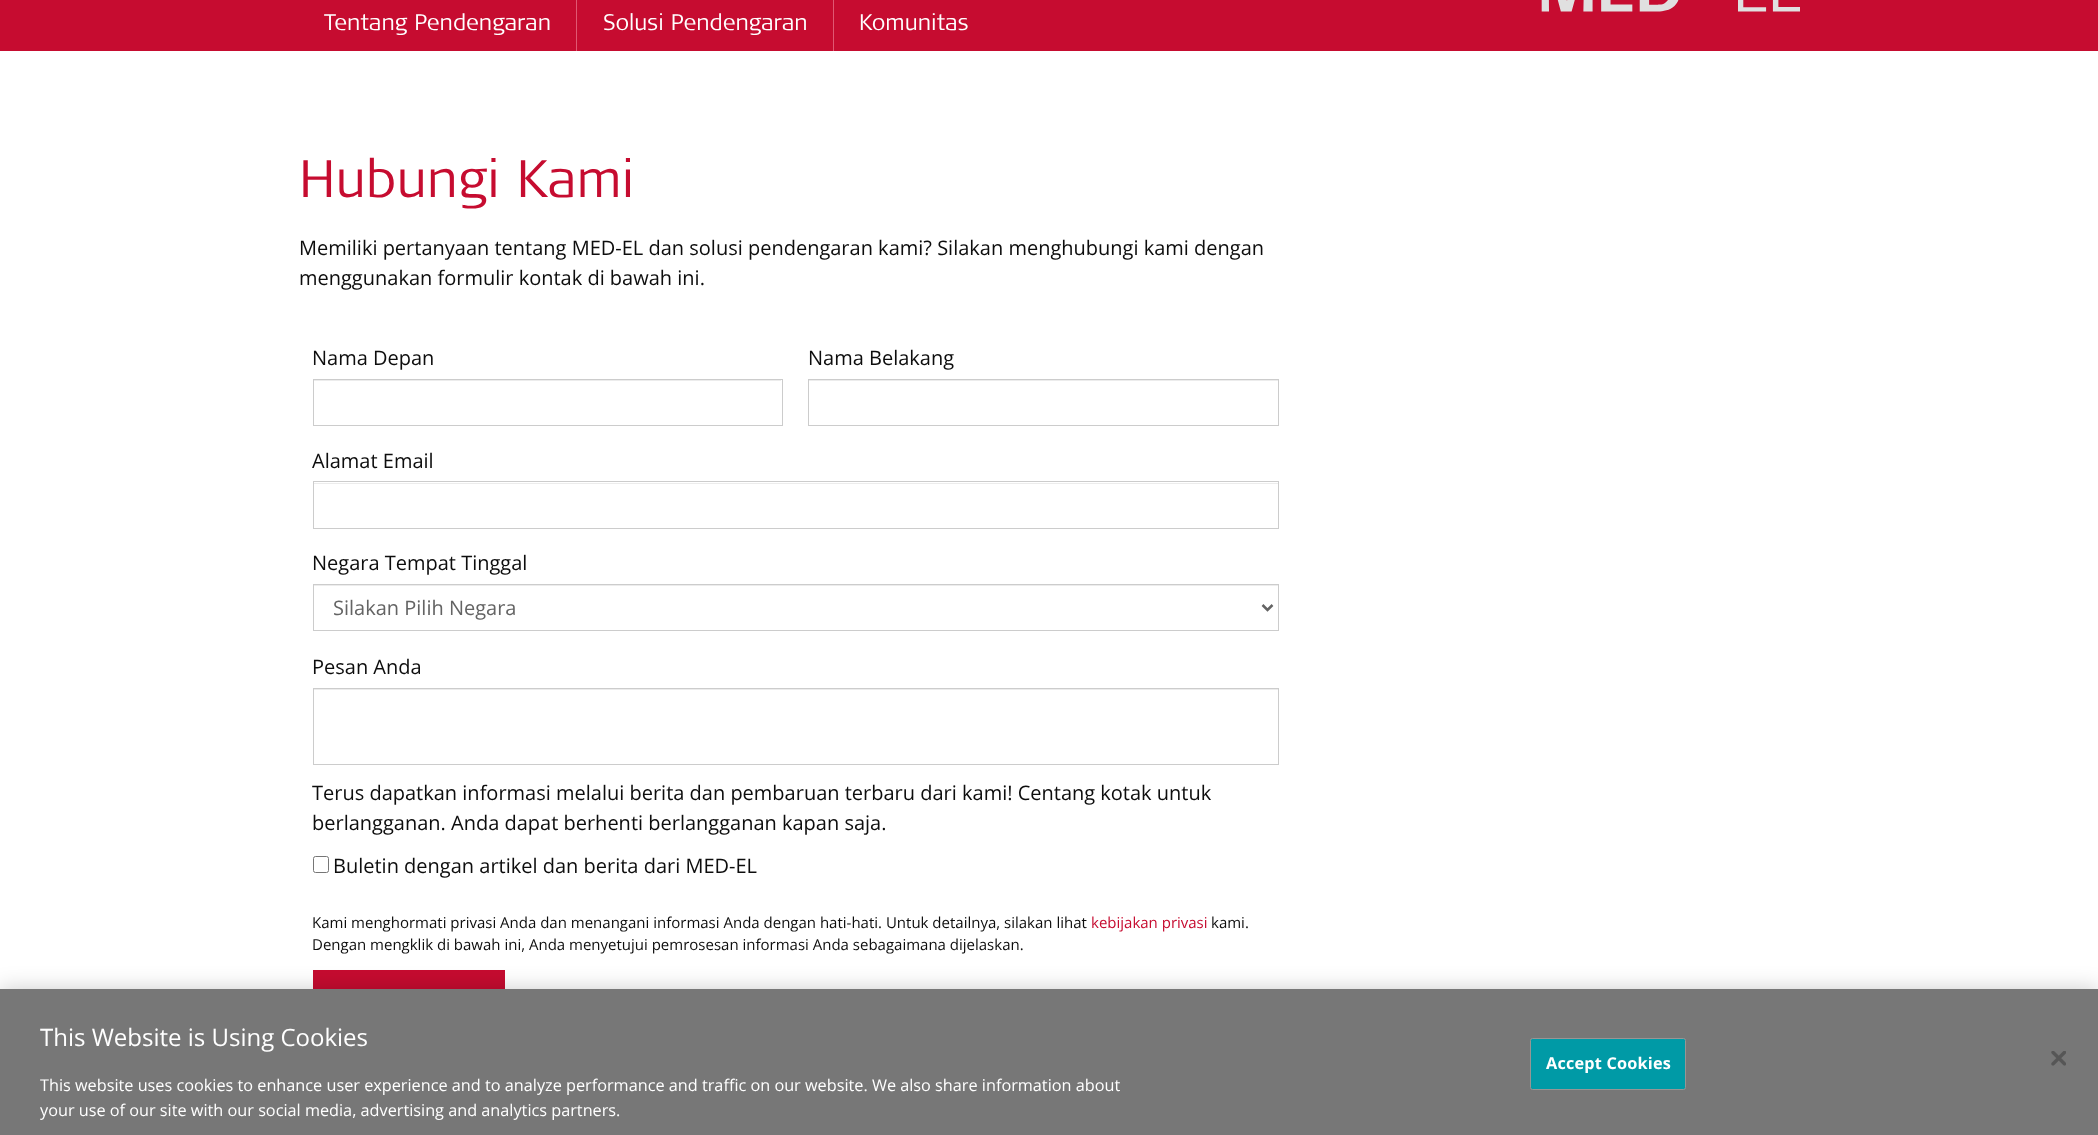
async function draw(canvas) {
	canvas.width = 2098;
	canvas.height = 1135;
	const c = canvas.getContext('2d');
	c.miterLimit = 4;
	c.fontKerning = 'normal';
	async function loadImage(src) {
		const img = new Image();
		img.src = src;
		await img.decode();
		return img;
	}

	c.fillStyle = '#fff';
	c.fillRect(0, 0, 2098, 1135);
	c.fillStyle = '#c60c30';
	c.fillRect(0, 0, 2098, 51);
	c.drawImage(await loadImage('img1.png'), 1541, 0, 259, 12);
	c.fillStyle = '#e05872';
	c.fillRect(576, 0, 1, 51);
	c.font = '300 22.5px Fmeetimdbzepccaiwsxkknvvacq';
	c.fillStyle = '#fff';
	c.fillText('Tentang Pendengaran', 324, 30);
	c.fillStyle = '#e05872';
	c.fillRect(833, 0, 1, 51);
	c.fillStyle = '#fff';
	c.fillText('Solusi Pendengaran', 603, 30);
	c.fillText('Komunitas', 859, 30);
	c.font = '300 52.5px Fmeetimdbzepccaiwsxkknvvacq';
	c.fillStyle = '#c60c30';
	c.fillText('Hubungi Kami', 299, 197);
	c.font = '20px Open Sans';
	c.fillStyle = '#0d0d0d';
	for (const [text, x, y] of [
		['Memiliki pertanyaan tentang MED-EL dan solusi pendengaran kami? Silakan menghubungi kami dengan', 299, 255],
		['menggunakan formulir kontak di bawah ini.', 299, 285],
		['Nama Depan', 312, 365],
	]) {
		c.fillText(text, x, y);
	}
	c.fillStyle = '#ececec';
	c.fillRect(314, 380, 467, 1);
	c.strokeStyle = '#ccc';
	c.strokeRect(313.5, 379.5, 469, 46);
	c.fillStyle = '#0d0d0d';
	c.fillText('Nama Belakang', 808, 365);
	c.fillStyle = '#ececec';
	c.fillRect(809, 380, 469, 1);
	c.strokeRect(808.5, 379.5, 470, 46);
	c.fillStyle = '#0d0d0d';
	c.fillText('Alamat Email', 312, 468);
	c.fillStyle = '#ececec';
	c.fillRect(314, 483, 964, 1);
	c.strokeRect(313.5, 481.5, 965, 47);
	c.fillStyle = '#0d0d0d';
	c.fillText('Negara Tempat Tinggal', 312, 570);
	c.fillStyle = '#ececec';
	c.fillRect(314, 585, 964, 1);
	c.strokeRect(313.5, 584.5, 965, 46);
	c.beginPath();
	c.moveTo(1262.5, 605);
	c.lineTo(1267.5, 610);
	c.lineTo(1272.5, 605);
	c.strokeStyle = '#646464';
	c.lineWidth = 2.5;
	c.stroke();
	c.fillStyle = '#646464';
	c.fillText('Silakan Pilih Negara', 333, 615);
	c.fillStyle = '#0d0d0d';
	c.fillText('Pesan Anda', 312, 674);
	c.fillStyle = '#ececec';
	c.fillRect(314, 689, 964, 1);
	c.strokeStyle = '#ccc';
	c.lineWidth = 1;
	c.strokeRect(313.5, 688.5, 965, 76);
	c.fillStyle = '#0d0d0d';
	c.fillText('Terus dapatkan informasi melalui berita dan pembaruan terbaru dari kami! Centang kotak untuk', 312, 800);
	c.fillText('berlangganan. Anda dapat berhenti berlangganan kapan saja.', 312, 830);
	c.beginPath();
	c.roundRect(313.5, 856.5, 15, 16, 2);
	c.strokeStyle = '#767676';
	c.stroke();
	c.fillText('Buletin dengan artikel dan berita dari MED-EL', 333, 873);
	c.font = '15px Open Sans';
	c.fillText('Kami menghormati privasi Anda dan menangani informasi Anda dengan hati-hati. Untuk detailnya, silakan lihat', 312, 928);
	c.fillStyle = '#c60c30';
	c.fillText('kebijakan privasi', 1091, 928);
	c.fillStyle = '#0d0d0d';
	c.fillText('kami.', 1211, 928);
	c.fillText('Dengan mengklik di bawah ini, Anda menyetujui pemrosesan informasi Anda sebagaimana dijelaskan.', 312, 950);
	c.fillStyle = '#c60c30';
	c.fillRect(313, 970, 192, 19);
	c.fillStyle = '#00000033';
	c.filter = 'blur(11px)';
	c.beginPath();
	c.rect(0, 989, 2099, 146);
	c.fill();
	c.filter = 'none';
	c.fillStyle = '#777';
	c.fillRect(0, 989, 2098, 146);
	c.font = '24px Open Sans';
	c.fillStyle = '#fff';
	c.fillText('This Website is Using Cookies', 40, 1046);
	c.font = '16.25px Open Sans';
	c.fillText('This website uses cookies to enhance user experience and to analyze performance and traffic on our website. We also share information about', 40, 1091);
	c.fillText('your use of our site with our social media, advertising and analytics partners.', 40, 1116);
	c.fillStyle = '#009aa6';
	c.beginPath();
	c.roundRect(1530.5, 1038.5, 155, 51, 2);
	c.fill();
	c.strokeStyle = '#979594';
	c.stroke();
	c.letterSpacing = '0.2px';
	c.font = 'bold 16.25px Open Sans';
	c.fillStyle = '#fff';
	c.fillText('Accept Cookies', 1546, 1069);
	c.drawImage(await loadImage('img2.png'), 2051, 1051, 15, 15);
}

draw(document.querySelector('canvas'));
